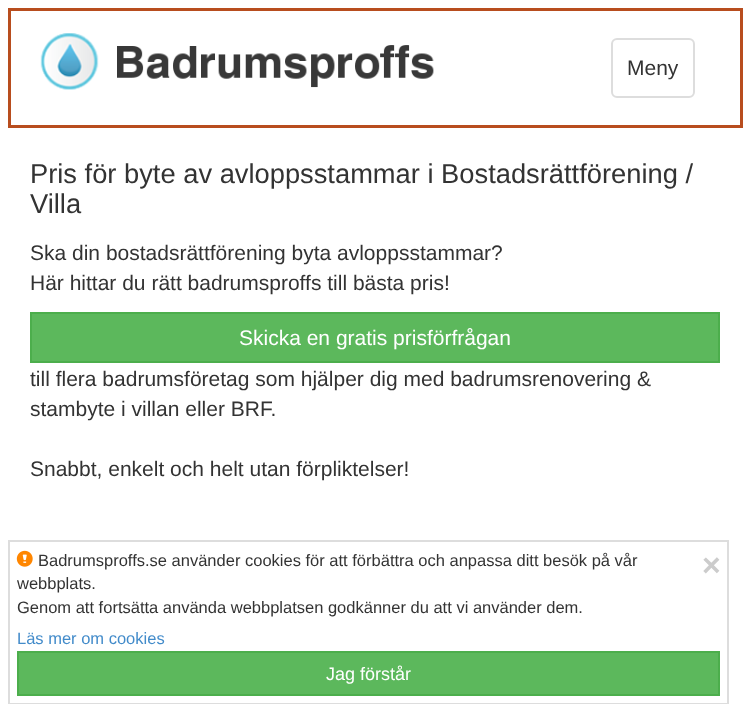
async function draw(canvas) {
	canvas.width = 750;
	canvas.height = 704;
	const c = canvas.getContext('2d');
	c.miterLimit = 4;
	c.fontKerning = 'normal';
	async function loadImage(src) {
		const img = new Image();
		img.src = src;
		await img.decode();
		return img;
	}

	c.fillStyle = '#fff';
	c.fillRect(0, 0, 750, 704);
	c.strokeStyle = '#b84d1e';
	c.lineWidth = 3;
	c.strokeRect(9.5, 9.5, 732, 117);
	c.drawImage(await loadImage('img1.png'), 40, 33, 394, 57);
	c.beginPath();
	c.roundRect(612, 39, 82, 58, 5);
	c.strokeStyle = '#ddd';
	c.lineWidth = 2;
	c.stroke();
	c.font = '21px Liberation Sans';
	c.fillStyle = '#333';
	c.fillText('Meny', 627, 75);
	c.font = '27.3px Liberation Sans';
	c.fillText('Pris för byte av avloppsstammar i Bostadsrättförening /', 30, 183);
	c.fillText('Villa', 30, 213);
	c.font = '21px Liberation Sans';
	c.fillText('Ska din bostadsrättförening byta avloppsstammar?', 30, 260);
	c.fillText('Här hittar du rätt badrumsproffs till bästa pris!', 30, 290);
	c.fillStyle = '#5cb85c';
	c.beginPath();
	c.rect(31, 313, 688, 49);
	c.fill();
	c.strokeStyle = '#4cae4c';
	c.stroke();
	c.fillStyle = '#fff';
	c.fillText('Skicka en gratis prisförfrågan', 239, 345);
	c.fillStyle = '#333';
	for (const [text, x, y] of [
		['till flera badrumsföretag som hjälper dig med badrumsrenovering &', 30, 386],
		['stambyte i villan eller BRF.', 30, 416],
		['Snabbt, enkelt och helt utan förpliktelser!', 30, 476],
	]) {
		c.fillText(text, x, y);
	}
	c.strokeStyle = '#ddd';
	c.strokeRect(9, 541, 719, 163);
	c.drawImage(await loadImage('img2.png'), 16, 550, 17, 17);
	c.font = '16.5px Liberation Sans';
	for (const [text, x, y] of [
		['Badrumsproffs.se använder cookies för att förbättra och anpassa ditt besök på vår', 38, 566],
		['webbplats.', 17, 589],
		['Genom att fortsätta använda webbplatsen godkänner du att vi använder dem.', 17, 613],
	]) {
		c.fillText(text, x, y);
	}
	c.font = 'bold 32px Liberation Sans';
	c.fillStyle = '#ccc';
	c.fillText('×', 702, 576);
	c.font = '16.5px Liberation Sans';
	c.fillStyle = '#428bca';
	c.fillText('Läs mer om cookies', 17, 644);
	c.fillStyle = '#5cb85c';
	c.beginPath();
	c.rect(18, 652, 701, 43);
	c.fill();
	c.strokeStyle = '#4cae4c';
	c.stroke();
	c.font = '18px Liberation Sans';
	c.fillStyle = '#fff';
	c.fillText('Jag förstår', 326, 680);
}

draw(document.querySelector('canvas'));
